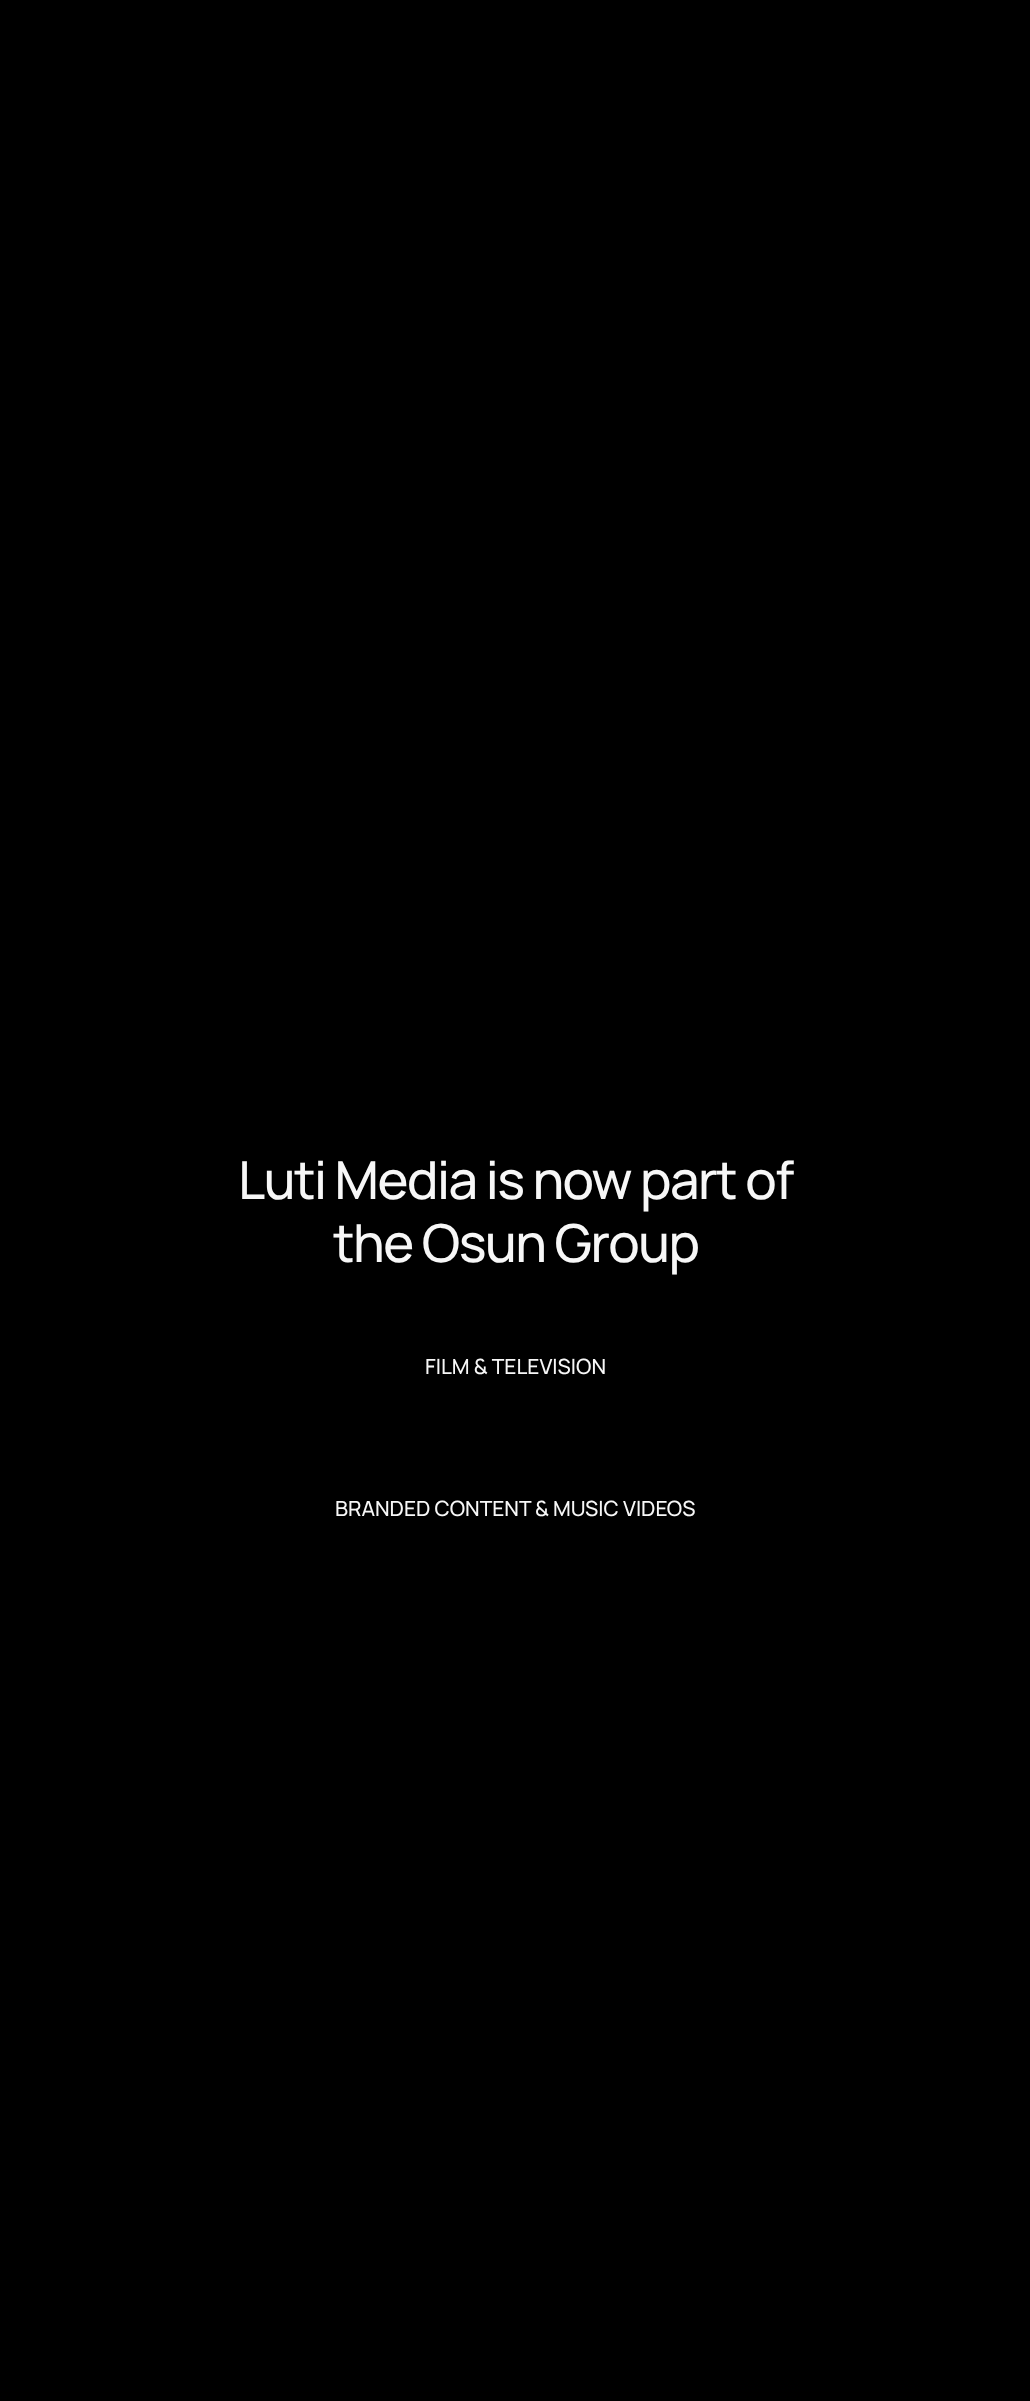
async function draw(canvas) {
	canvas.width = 1030;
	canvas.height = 2401;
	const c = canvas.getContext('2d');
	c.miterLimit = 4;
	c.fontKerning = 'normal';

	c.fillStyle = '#000';
	c.fillRect(0, 0, 1030, 2401);
	c.letterSpacing = '-1.5px';
	c.font = '500 52.5px Manrope';
	c.fillStyle = '#f7f7f7';
	c.fillText('Luti Media is now part of', 238, 1199);
	c.fillText('the Osun Group', 333, 1262);
	c.letterSpacing = '0px';
	c.font = '500 21px Manrope';
	c.fillText('FILM & TELEVISION', 425, 1374);
	c.fillText('BRANDED CONTENT & MUSIC VIDEOS', 335, 1516);
}

draw(document.querySelector('canvas'));
